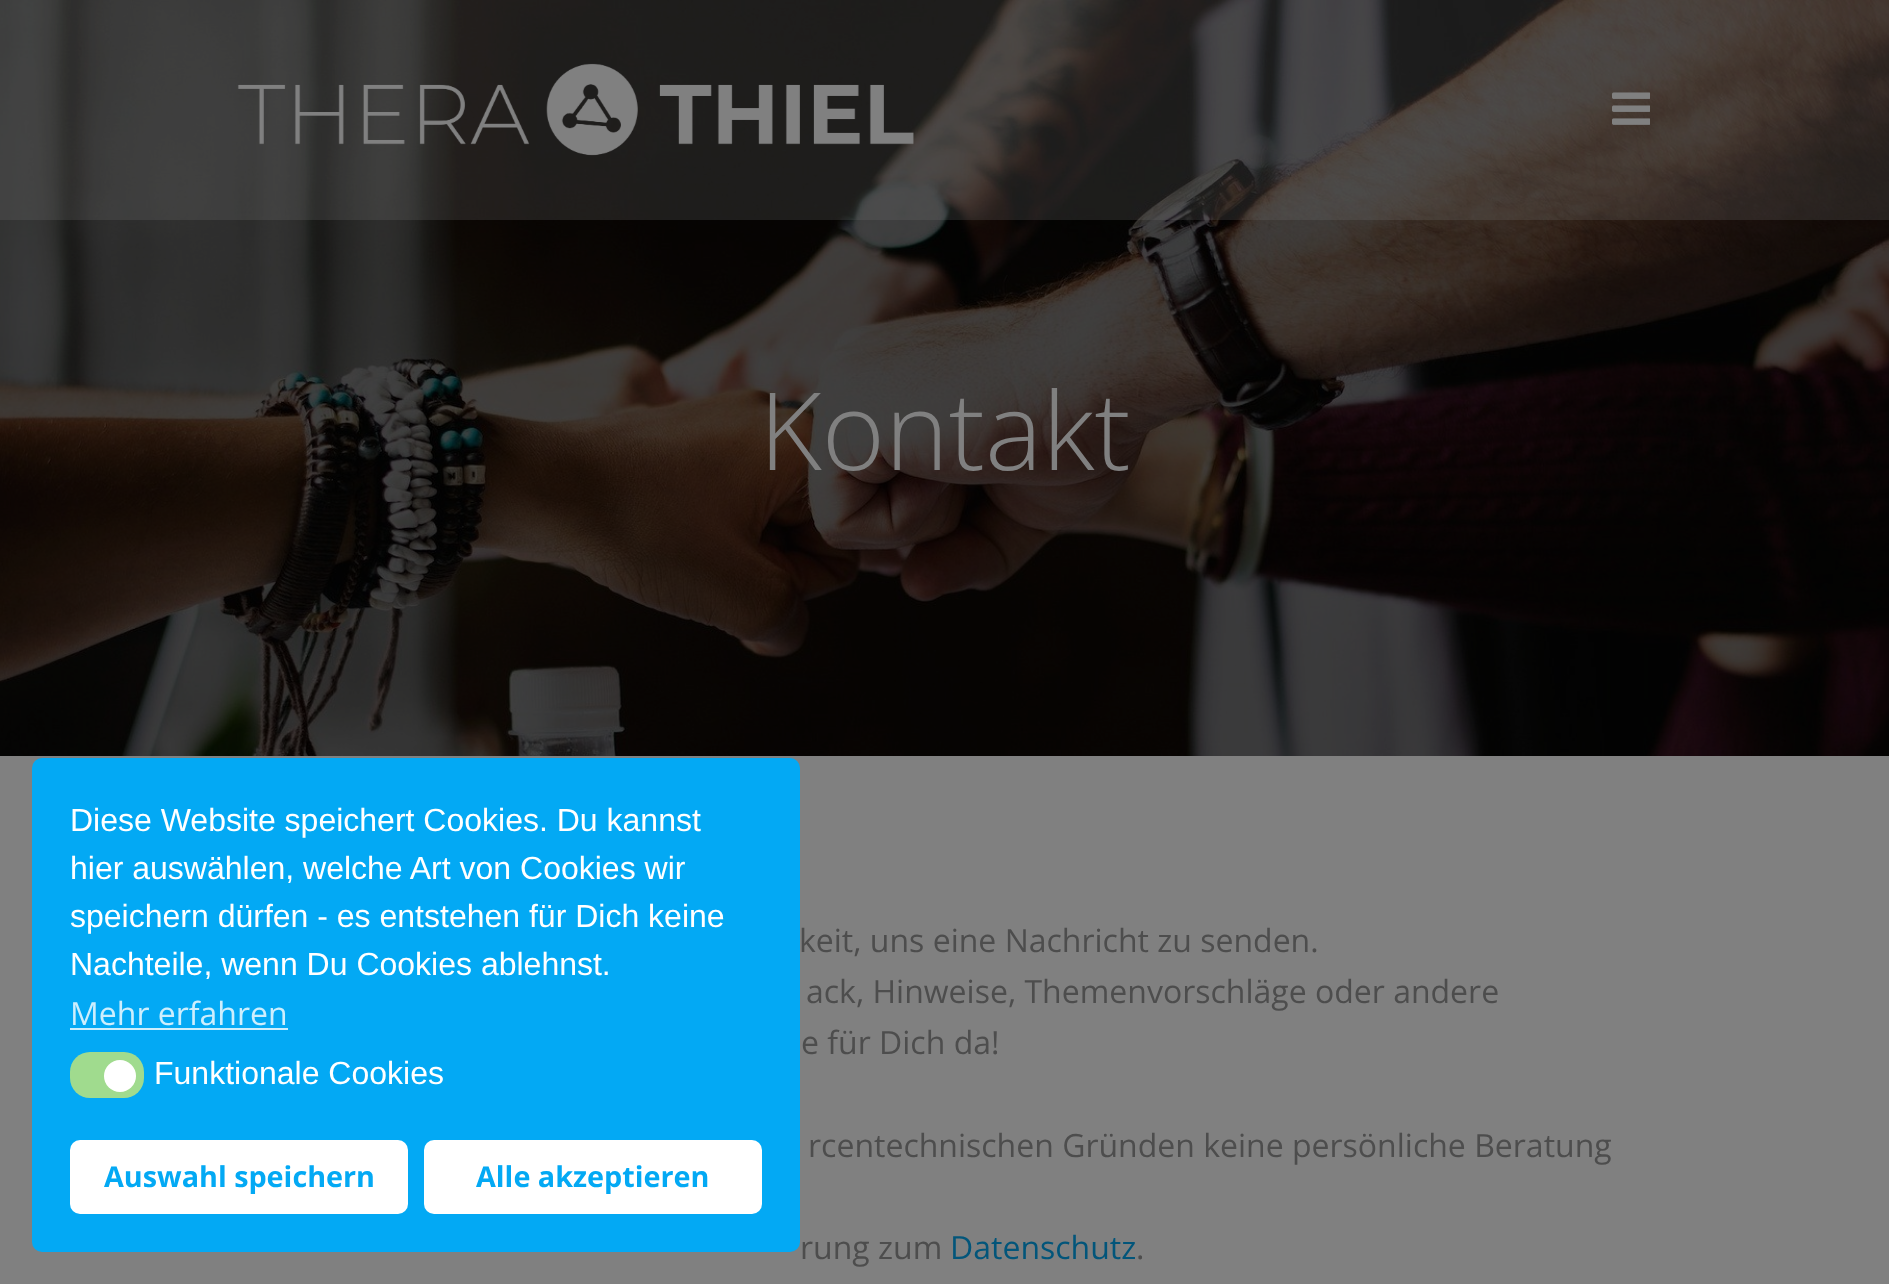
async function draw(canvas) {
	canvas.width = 1889;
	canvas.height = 1284;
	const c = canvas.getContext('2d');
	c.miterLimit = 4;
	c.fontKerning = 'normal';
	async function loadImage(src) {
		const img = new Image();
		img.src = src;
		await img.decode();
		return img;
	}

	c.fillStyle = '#808080';
	c.fillRect(0, 0, 1889, 1284);
	c.fillStyle = '#03a9f4';
	c.beginPath();
	c.roundRect(32, 758, 768, 494, 10);
	c.fill();
	c.font = '32px Liberation Sans';
	c.fillStyle = '#fff';
	for (const [text, x, y] of [
		['Diese Website speichert Cookies. Du kannst', 70, 831],
		['hier auswählen, welche Art von Cookies wir', 70, 879],
		['speichern dürfen - es entstehen für Dich keine', 70, 927],
		['Nachteile, wenn Du Cookies ablehnst.', 70, 975],
	]) {
		c.fillText(text, x, y);
	}
	c.font = '32px Open Sans';
	c.fillStyle = '#cdeefd';
	c.fillText('Mehr erfahren', 70, 1025);
	c.fillRect(70, 1028, 218, 2);
	c.fillStyle = '#a0db8e';
	c.beginPath();
	c.roundRect(70, 1052, 74, 46, 20);
	c.fill();
	c.fillStyle = '#fff';
	c.beginPath();
	c.arc(120, 1076, 16, 0, 2 * Math.PI);
	c.fill();
	c.font = '32px Liberation Sans';
	c.fillText('Funktionale Cookies', 154, 1084);
	c.beginPath();
	c.roundRect(70, 1140, 338, 74, 10);
	c.fill();
	c.font = 'bold 28.75px Open Sans';
	c.fillStyle = '#03a9f4';
	c.fillText('Auswahl speichern', 104, 1187);
	c.fillStyle = '#fff';
	c.beginPath();
	c.roundRect(424, 1140, 338, 74, 10);
	c.fill();
	c.fillStyle = '#03a9f4';
	c.fillText('Alle akzeptieren', 476, 1187);
	c.drawImage(await loadImage('img3.png'), 0, 0, 1889, 756);
	c.fillStyle = '#80808033';
	c.fillRect(0, 0, 1889, 220);
	c.drawImage(await loadImage('img1.png'), 237, 63, 677, 93);
	c.drawImage(await loadImage('img2.png'), 1612, 92, 38, 33);
	c.font = '300 108px Open Sans';
	c.fillStyle = '#808080';
	c.fillText('Kontakt', 759, 470);
	c.font = '32px Open Sans';
	c.fillStyle = '#4d4d4d';
	for (const [text, x, y] of [
		['keit, uns eine Nachricht zu senden.', 799, 952],
		['ack, Hinweise, Themenvorschläge oder andere', 806, 1003],
		['e für Dich da!', 801, 1054],
		['rcentechnischen Gründen keine persönliche Beratung', 808, 1157],
		['rung zum', 800, 1259],
	]) {
		c.fillText(text, x, y);
	}
	c.fillStyle = '#02557a';
	c.fillText('Datenschutz', 950, 1259);
	c.fillStyle = '#4d4d4d';
	c.fillText('.', 1136, 1259);
}

draw(document.querySelector('canvas'));
